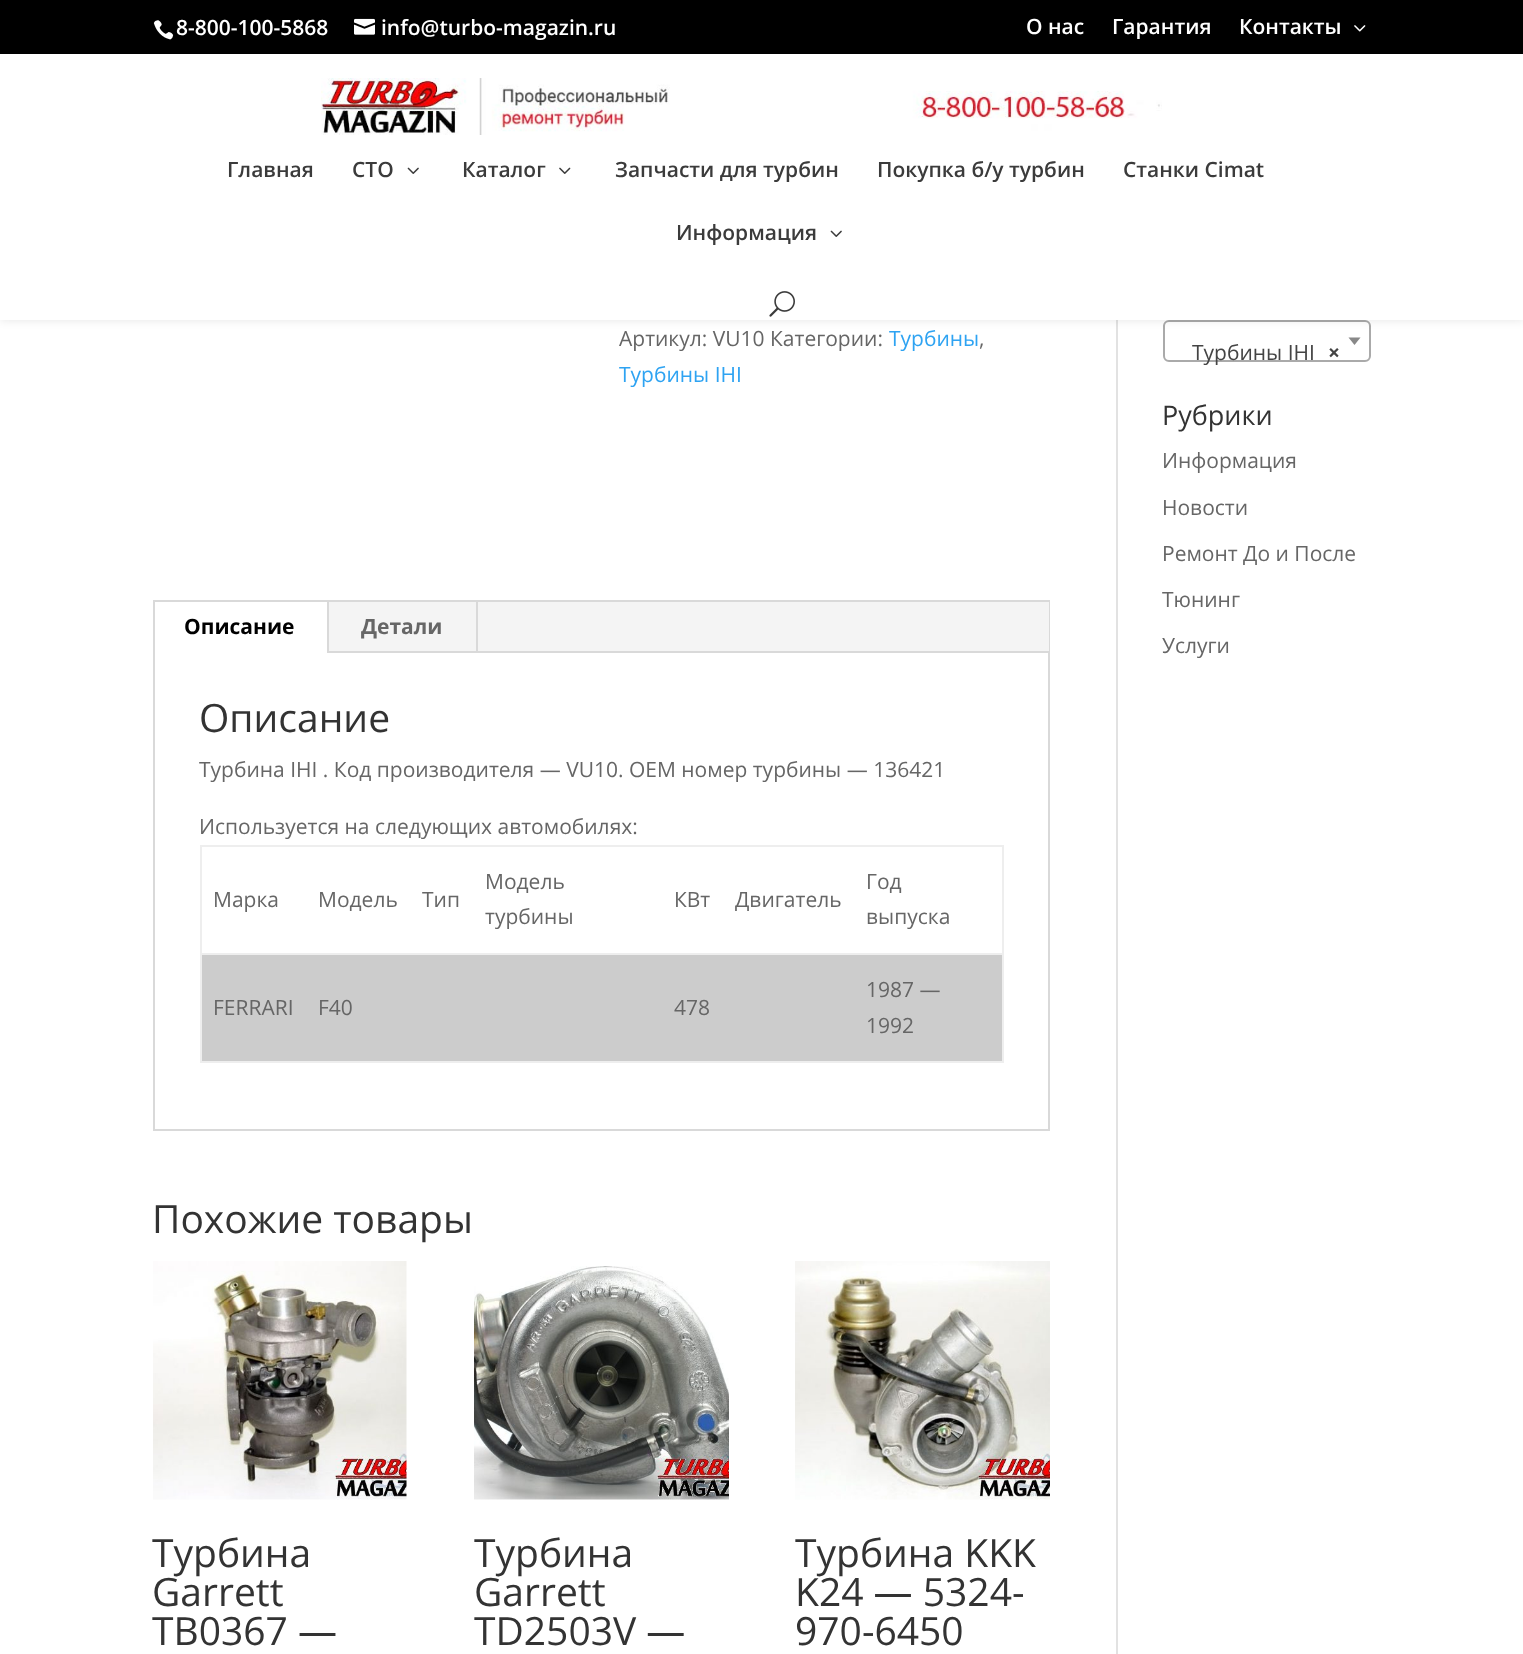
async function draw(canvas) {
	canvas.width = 1523;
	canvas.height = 1654;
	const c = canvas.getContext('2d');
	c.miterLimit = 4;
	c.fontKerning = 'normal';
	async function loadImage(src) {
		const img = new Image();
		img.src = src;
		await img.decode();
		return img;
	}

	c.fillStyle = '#fff';
	c.fillRect(0, 0, 1523, 1654);
	c.fillStyle = '#e2e2e2';
	c.fillRect(1116, 320, 2, 1334);
	c.beginPath();
	c.roundRect(1164, 321, 206, 40, 5);
	c.strokeStyle = '#aaa';
	c.lineWidth = 2;
	c.stroke();
	c.fillStyle = '#0000001a';
	c.filter = 'blur(5px)';
	c.beginPath();
	c.rect(0, 54, 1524, 266);
	c.fill();
	c.filter = 'none';
	c.fillStyle = '#000';
	c.fillRect(0, 0, 1523, 54);
	c.drawImage(await loadImage('img1.png'), 153, 20, 21, 20);
	c.font = '600 21px Open Sans';
	c.fillStyle = '#fff';
	c.fillText('8-800-100-5868', 176, 35);
	c.drawImage(await loadImage('img2.png'), 354, 18, 21, 17);
	for (const [text, x, y] of [
		['info@turbo-magazin.ru', 381, 35],
		['О нас', 1026, 34],
		['Гарантия', 1112, 34],
		['Контакты', 1239, 34],
	]) {
		c.fillText(text, x, y);
	}
	c.drawImage(await loadImage('img3.png'), 1354, 25, 12, 7);
	c.fillRect(0, 54, 1523, 266);
	c.drawImage(await loadImage('img4.png'), 321, 78, 841, 57);
	c.fillStyle = '#3b3b3b';
	c.fillText('Главная', 227, 177);
	c.fillText('СТО', 352, 177);
	c.drawImage(await loadImage('img5.png'), 407, 167, 12, 7);
	c.fillText('Каталог', 462, 177);
	c.drawImage(await loadImage('img6.png'), 559, 167, 12, 7);
	for (const [text, x, y] of [
		['Запчасти для турбин', 615, 177],
		['Покупка б/у турбин', 877, 177],
		['Станки Cimat', 1123, 177],
		['Информация', 676, 240],
	]) {
		c.fillText(text, x, y);
	}
	c.drawImage(await loadImage('img5.png'), 830, 230, 12, 7);
	c.drawImage(await loadImage('img7.png'), 769, 291, 26, 26);
	c.font = '21px Open Sans';
	c.fillStyle = '#666';
	c.fillText('Артикул: VU10 Категории:', 619, 346);
	c.fillStyle = '#2ea3f2';
	c.fillText('Турбины', 889, 346);
	c.fillStyle = '#666';
	c.fillText(',', 979, 346);
	c.fillStyle = '#2ea3f2';
	c.fillText('Турбины IHI', 619, 382);
	c.strokeStyle = '#d9d9d9';
	c.strokeRect(154, 601, 895, 529);
	c.fillStyle = '#f4f4f4';
	c.fillRect(329, 602, 720, 49);
	c.fillStyle = '#d9d9d9';
	c.fillRect(327, 602, 2, 51);
	c.font = 'bold 21px Open Sans';
	c.fillStyle = '#000';
	c.fillText('Описание', 184, 634);
	c.fillStyle = '#d9d9d9';
	c.fillRect(476, 602, 2, 51);
	c.fillStyle = '#666';
	c.fillText('Детали', 361, 634);
	c.fillStyle = '#d9d9d9';
	c.fillRect(329, 651, 720, 2);
	c.font = '39px Open Sans';
	c.fillStyle = '#333';
	c.fillText('Описание', 199, 732);
	c.font = '21px Open Sans';
	c.fillStyle = '#666';
	c.fillText('Турбина IHI . Код производителя — VU10. ОЕМ номер турбины — 136421', 199, 777);
	c.fillText('Используется на следующих автомобилях:', 199, 834);
	for (const [x, y, w, h, color] of [
		[200, 845, 804, 2, '#eee'],
		[1002, 845, 2, 217, '#eee'],
		[200, 1061, 804, 2, '#eee'],
		[200, 845, 2, 217, '#eee'],
	]) {
		c.fillStyle = color;
		c.fillRect(x, y, w, h);
	}
	c.fillStyle = '#666';
	for (const [text, x, y] of [
		['Марка', 213, 907],
		['Модель', 318, 907],
		['Тип', 422, 907],
		['Модель', 485, 889],
		['турбины', 485, 924],
		['КВт', 674, 907],
		['Двигатель', 735, 907],
		['Год', 866, 889],
		['выпуска', 866, 924],
	]) {
		c.fillText(text, x, y);
	}
	c.fillStyle = '#ccc';
	c.fillRect(202, 955, 800, 106);
	c.fillStyle = '#666';
	for (const [text, x, y] of [
		['FERRARI', 213, 1015],
		['F40', 318, 1015],
		['478', 674, 1015],
	]) {
		c.fillText(text, x, y);
	}
	c.fillStyle = '#eee';
	c.fillRect(200, 953, 804, 2);
	c.fillStyle = '#666';
	c.fillText('1987 —', 866, 997);
	c.fillText('1992', 866, 1033);
	c.font = '39px Open Sans';
	c.fillStyle = '#333';
	c.fillText('Похожие товары', 152, 1233);
	c.drawImage(await loadImage('img8.png'), 153, 1261, 254, 239);
	for (const [text, x, y] of [
		['Турбина', 152, 1567],
		['Garrett', 152, 1606],
		['TB0367 —', 152, 1645],
	]) {
		c.fillText(text, x, y);
	}
	c.drawImage(await loadImage('img9.png'), 474, 1266, 255, 234);
	for (const [text, x, y] of [
		['Турбина', 474, 1567],
		['Garrett', 474, 1606],
		['TD2503V —', 474, 1645],
	]) {
		c.fillText(text, x, y);
	}
	c.drawImage(await loadImage('img10.png'), 795, 1261, 255, 239);
	for (const [text, x, y] of [
		['Турбина KKK', 795, 1567],
		['K24 — 5324-', 795, 1606],
		['970-6450', 795, 1645],
	]) {
		c.fillText(text, x, y);
	}
	c.fillStyle = '#888';
	c.beginPath();
	c.moveTo(1348.5, 337.5);
	c.lineTo(1360.5, 337.5);
	c.lineTo(1354.5, 345);
	c.closePath();
	c.fill();
	c.font = '21px Open Sans';
	c.fillStyle = '#444';
	c.fillText('Турбины IHI', 1192, 360);
	c.font = 'bold 21px Open Sans';
	c.fillText('×', 1328, 360);
	c.font = '27px Open Sans';
	c.fillStyle = '#333';
	c.fillText('Рубрики', 1162, 425);
	c.font = '21px Open Sans';
	c.fillStyle = '#666';
	for (const [text, x, y] of [
		['Информация', 1162, 468],
		['Новости', 1162, 515],
		['Ремонт До и После', 1162, 561],
		['Тюнинг', 1162, 607],
		['Услуги', 1162, 653],
	]) {
		c.fillText(text, x, y);
	}
}

draw(document.querySelector('canvas'));
